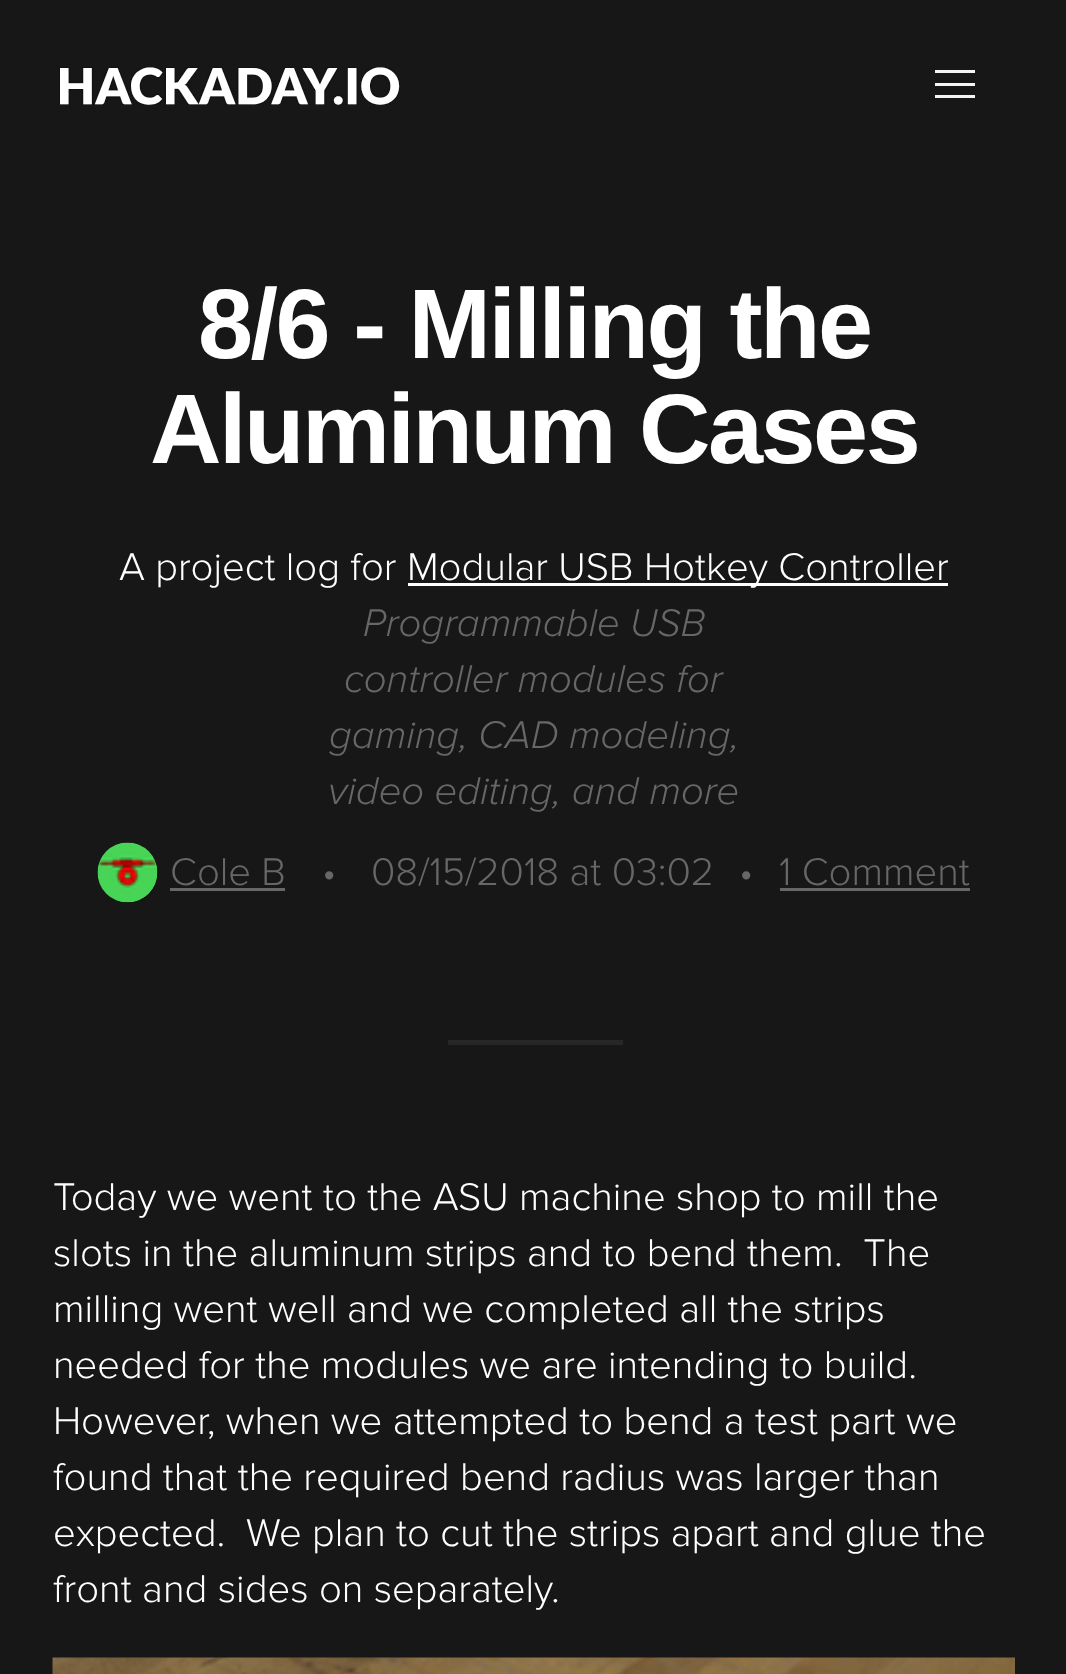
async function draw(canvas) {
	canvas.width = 1066;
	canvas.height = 1674;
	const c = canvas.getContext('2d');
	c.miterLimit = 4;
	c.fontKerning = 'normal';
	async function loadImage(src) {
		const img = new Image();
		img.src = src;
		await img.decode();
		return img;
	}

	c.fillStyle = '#171717';
	c.fillRect(0, 0, 1066, 1674);
	c.drawImage(await loadImage('img1.png'), 59, 67, 341, 38);
	for (const [x, y, w, h, color] of [
		[935, 70, 40, 3, '#f5f5f5'],
		[935, 83, 40, 3, '#f5f5f5'],
		[935, 95, 40, 3, '#f5f5f5'],
	]) {
		c.fillStyle = color;
		c.fillRect(x, y, w, h);
	}
	c.letterSpacing = '-2.5px';
	c.font = 'bold 99px Liberation Sans';
	c.fillStyle = '#fff';
	c.fillText('8/6 - Milling the', 198, 358);
	c.fillText('Aluminum Cases', 150, 463);
	c.letterSpacing = '0px';
	c.font = '300 40px Proxima Nova';
	c.fillText('A project log for', 119, 580);
	c.fillRect(408, 583, 540, 3);
	c.fillText('Modular USB Hotkey Controller', 407, 580);
	c.font = 'italic 300 40px Proxima Nova';
	c.fillStyle = '#676767';
	for (const [text, x, y] of [
		['Programmable USB', 363, 636],
		['controller modules for', 344, 692],
		['gaming, CAD modeling,', 329, 748],
		['video editing, and more', 328, 804],
	]) {
		c.fillText(text, x, y);
	}
	c.fillStyle = '#000';
	c.beginPath();
	c.arc(128, 873, 30, 0, 2 * Math.PI);
	c.fill();
	c.drawImage(await loadImage('img2.png'), 97, 842, 61, 61);
	c.font = '300 40px Proxima Nova';
	c.fillStyle = '#676767';
	c.fillText('Cole B', 170, 885);
	c.fillRect(170, 888, 115, 3);
	for (const [text, x, y] of [
		['•', 322, 885],
		['08/15/2018 at 03:02', 371, 885],
		['•', 739, 885],
		['1 Comment', 779, 885],
	]) {
		c.fillText(text, x, y);
	}
	c.fillRect(780, 888, 190, 3);
	c.fillStyle = '#272727';
	c.fillRect(448, 1040, 175, 5);
	c.fillStyle = '#fff';
	for (const [text, x, y] of [
		['Today we went to the ASU machine shop to mill the', 53, 1210],
		['slots in the aluminum strips and to bend them.  The', 53, 1266],
		['milling went well and we completed all the strips', 53, 1322],
		['needed for the modules we are intending to build.', 53, 1378],
		['However, when we attempted to bend a test part we', 53, 1434],
		['found that the required bend radius was larger than', 53, 1490],
		['expected.  We plan to cut the strips apart and glue the', 53, 1546],
		['front and sides on separately.', 53, 1602],
	]) {
		c.fillText(text, x, y);
	}
	c.drawImage(await loadImage('img3.png'), 52, 1657, 963, 17);
}

draw(document.querySelector('canvas'));
